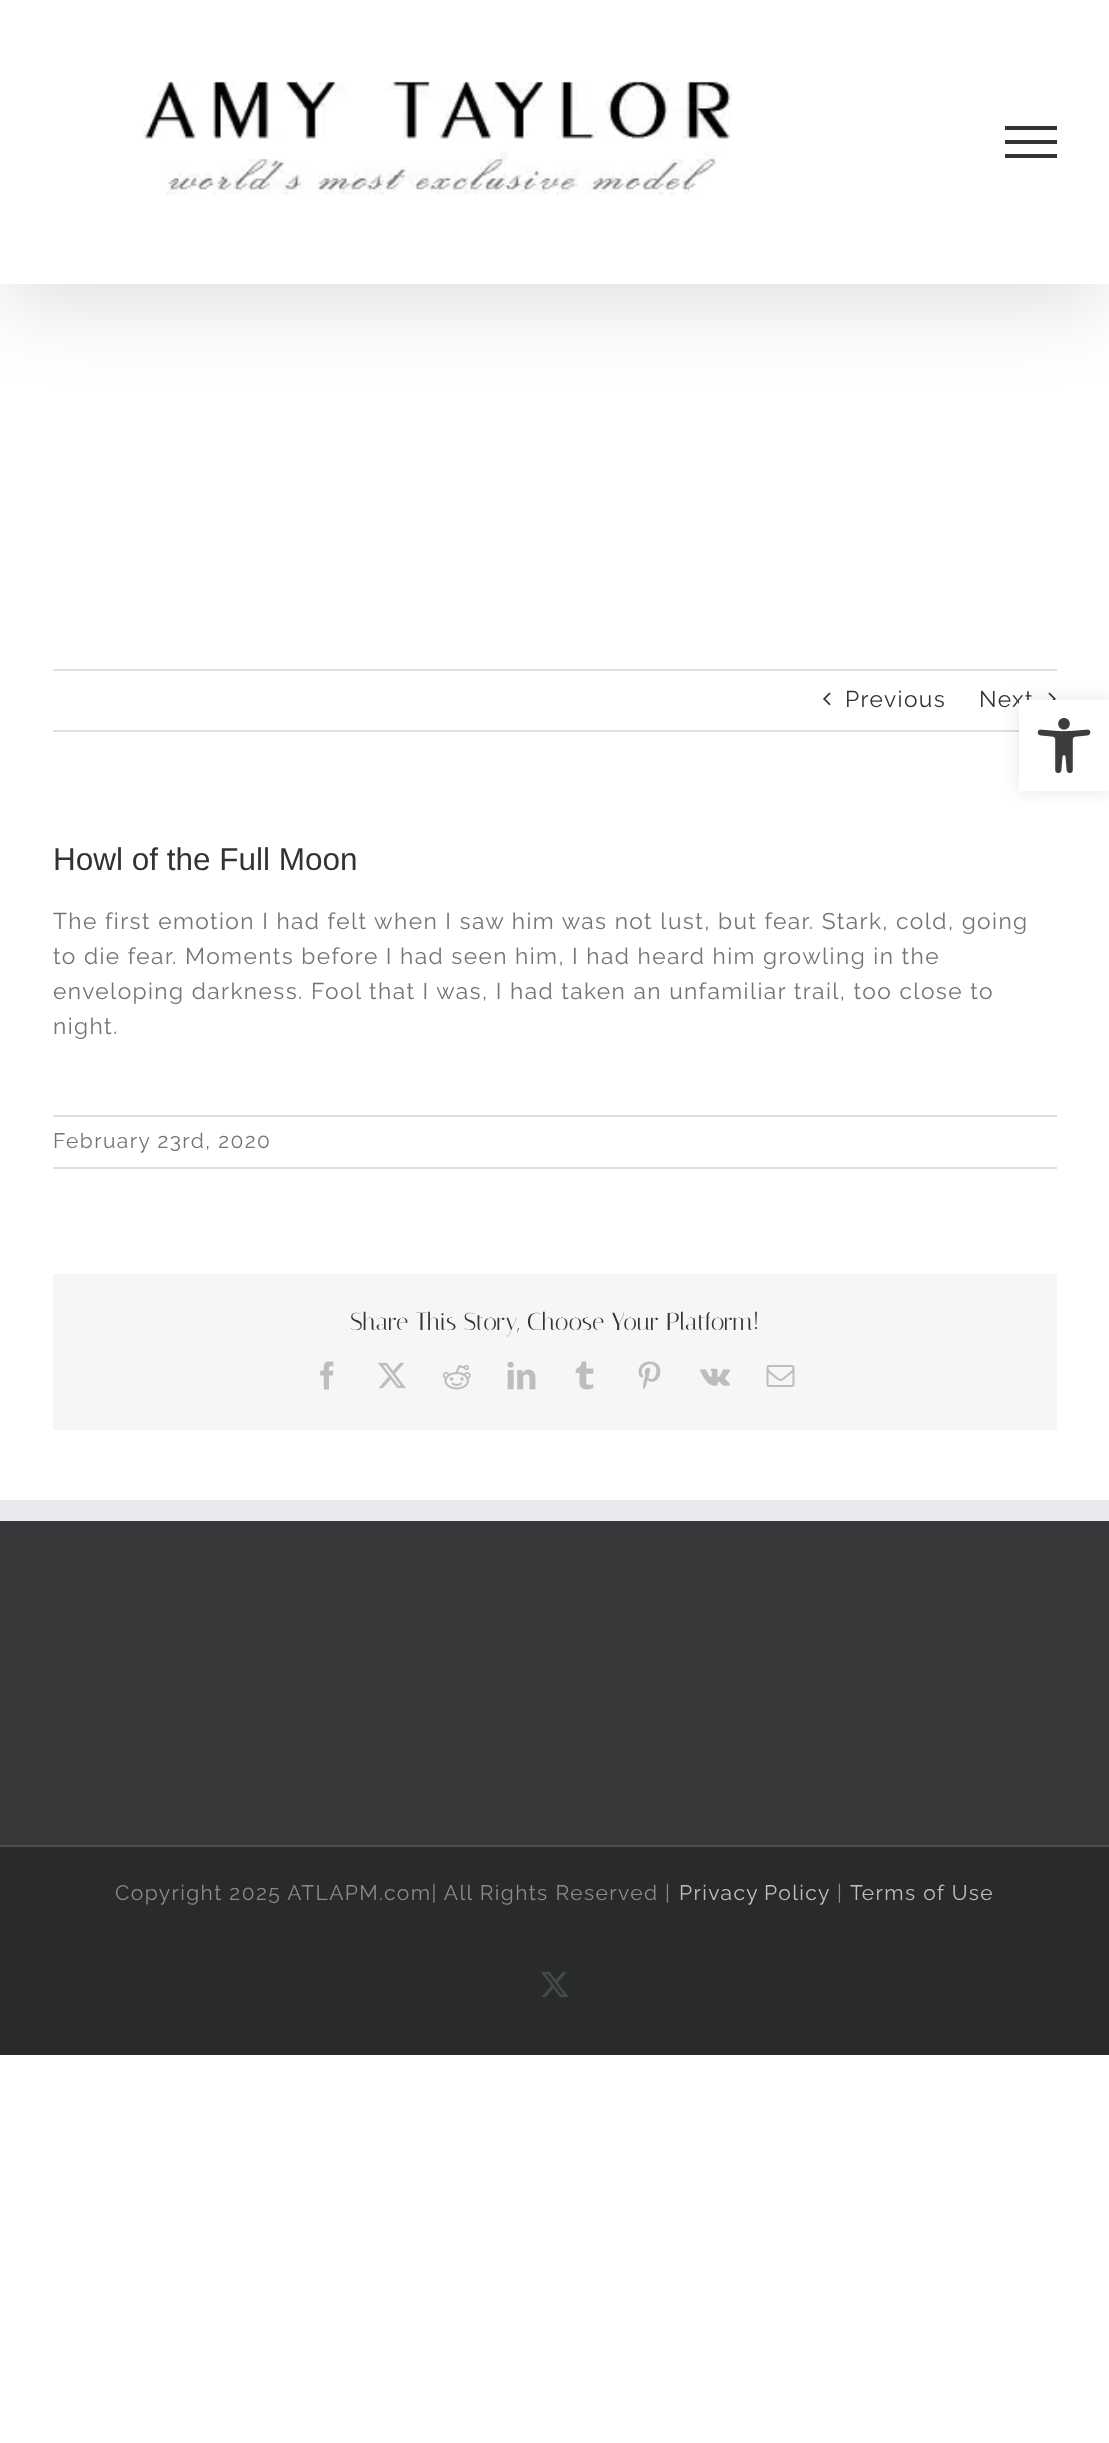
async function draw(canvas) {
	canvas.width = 1109;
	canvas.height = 2443;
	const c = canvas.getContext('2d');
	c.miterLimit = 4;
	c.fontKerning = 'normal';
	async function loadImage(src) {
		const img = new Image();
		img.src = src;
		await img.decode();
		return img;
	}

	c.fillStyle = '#fff';
	c.fillRect(0, 0, 1109, 2443);
	c.fillStyle = '#00000024';
	c.filter = 'blur(44px)';
	c.beginPath();
	c.rect(4, 21, 1102, 277);
	c.fill();
	c.filter = 'none';
	c.fillStyle = '#fff';
	c.fillRect(0, 0, 1109, 284);
	c.drawImage(await loadImage('img1.png'), 143, 81, 589, 114);
	for (const [x, y, w, h, color] of [
		[1005, 126, 52, 4, '#333'],
		[1005, 140, 52, 4, '#333'],
		[1005, 154, 52, 4, '#333'],
		[53, 669, 1004, 2, '#e0dede'],
		[53, 730, 966, 2, '#e0dede'],
	]) {
		c.fillStyle = color;
		c.fillRect(x, y, w, h);
	}
	c.drawImage(await loadImage('img2.png'), 823, 692, 8, 14);
	c.letterSpacing = '1.4px';
	c.font = '22.75px Raleway';
	c.fillStyle = '#333';
	c.fillText('Previous', 845, 707);
	c.fillText('Next', 979, 707);
	c.drawImage(await loadImage('img3.png'), 1048, 692, 8, 8);
	c.letterSpacing = '0px';
	c.font = '31.5px Liberation Sans';
	c.fillText('Howl of the Full Moon', 53, 870);
	c.letterSpacing = '1.4px';
	c.font = '22.75px Raleway';
	c.fillStyle = '#747474';
	for (const [text, x, y] of [
		['The first emotion I had felt when I saw him was not lust, but fear. Stark, cold, going', 53, 929],
		['to die fear. Moments before I had seen him, I had heard him growling in the', 53, 964],
		['enveloping darkness. Fool that I was, I had taken an unfamiliar trail, too close to', 53, 999],
		['night.', 53, 1034],
	]) {
		c.fillText(text, x, y);
	}
	c.fillStyle = '#e0dede';
	c.fillRect(53, 1115, 1004, 2);
	c.fillRect(53, 1167, 1004, 2);
	c.font = '21px Raleway';
	c.fillStyle = '#747474';
	c.fillText('February 23rd, 2020', 53, 1148);
	c.fillStyle = '#f6f6f6';
	c.fillRect(53, 1274, 1004, 156);
	c.letterSpacing = '0px';
	c.font = '24.5px Italiana';
	c.fillStyle = '#333';
	c.fillText('Share This Story, Choose Your Platform!', 350, 1330);
	c.drawImage(await loadImage('img4.png'), 320, 1361, 14, 29);
	c.drawImage(await loadImage('img5.png'), 378, 1362, 28, 27);
	c.drawImage(await loadImage('img6.png'), 442, 1365, 29, 25);
	c.drawImage(await loadImage('img7.png'), 507, 1361, 29, 29);
	c.drawImage(await loadImage('img8.png'), 575, 1361, 19, 29);
	c.drawImage(await loadImage('img9.png'), 638, 1361, 23, 29);
	c.drawImage(await loadImage('img10.png'), 700, 1368, 30, 18);
	c.drawImage(await loadImage('img11.png'), 766, 1365, 29, 22);
	for (const [x, y, w, h, color] of [
		[0, 1521, 1109, 324, '#363839'],
		[0, 1500, 1109, 21, '#e9eaee'],
		[0, 1847, 1109, 208, '#282a2b'],
		[0, 1845, 1109, 2, '#4b4c4d'],
	]) {
		c.fillStyle = color;
		c.fillRect(x, y, w, h);
	}
	c.letterSpacing = '1.4px';
	c.font = '21px Raleway';
	c.fillStyle = '#8c8989';
	c.fillText('Copyright 2025 ATLAPM.com| All Rights Reserved |', 115, 1900);
	c.wordSpacing = '-1px';
	c.fillStyle = '#bfbfbf';
	c.fillText('Privacy Policy', 679, 1900);
	c.wordSpacing = '0px';
	c.fillStyle = '#8c8989';
	c.fillText('|', 837, 1900);
	c.fillStyle = '#bfbfbf';
	c.fillText('Terms of Use', 850, 1900);
	c.drawImage(await loadImage('img12.png'), 541, 1971, 28, 27);
	c.fillStyle = '#0000001a';
	c.filter = 'blur(9px)';
	c.beginPath();
	c.rect(1019, 700, 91, 91);
	c.fill();
	c.filter = 'none';
	c.fillStyle = '#fff';
	c.fillRect(1019, 700, 90, 91);
	c.drawImage(await loadImage('img13.png'), 1037, 718, 54, 56);
}

draw(document.querySelector('canvas'));
